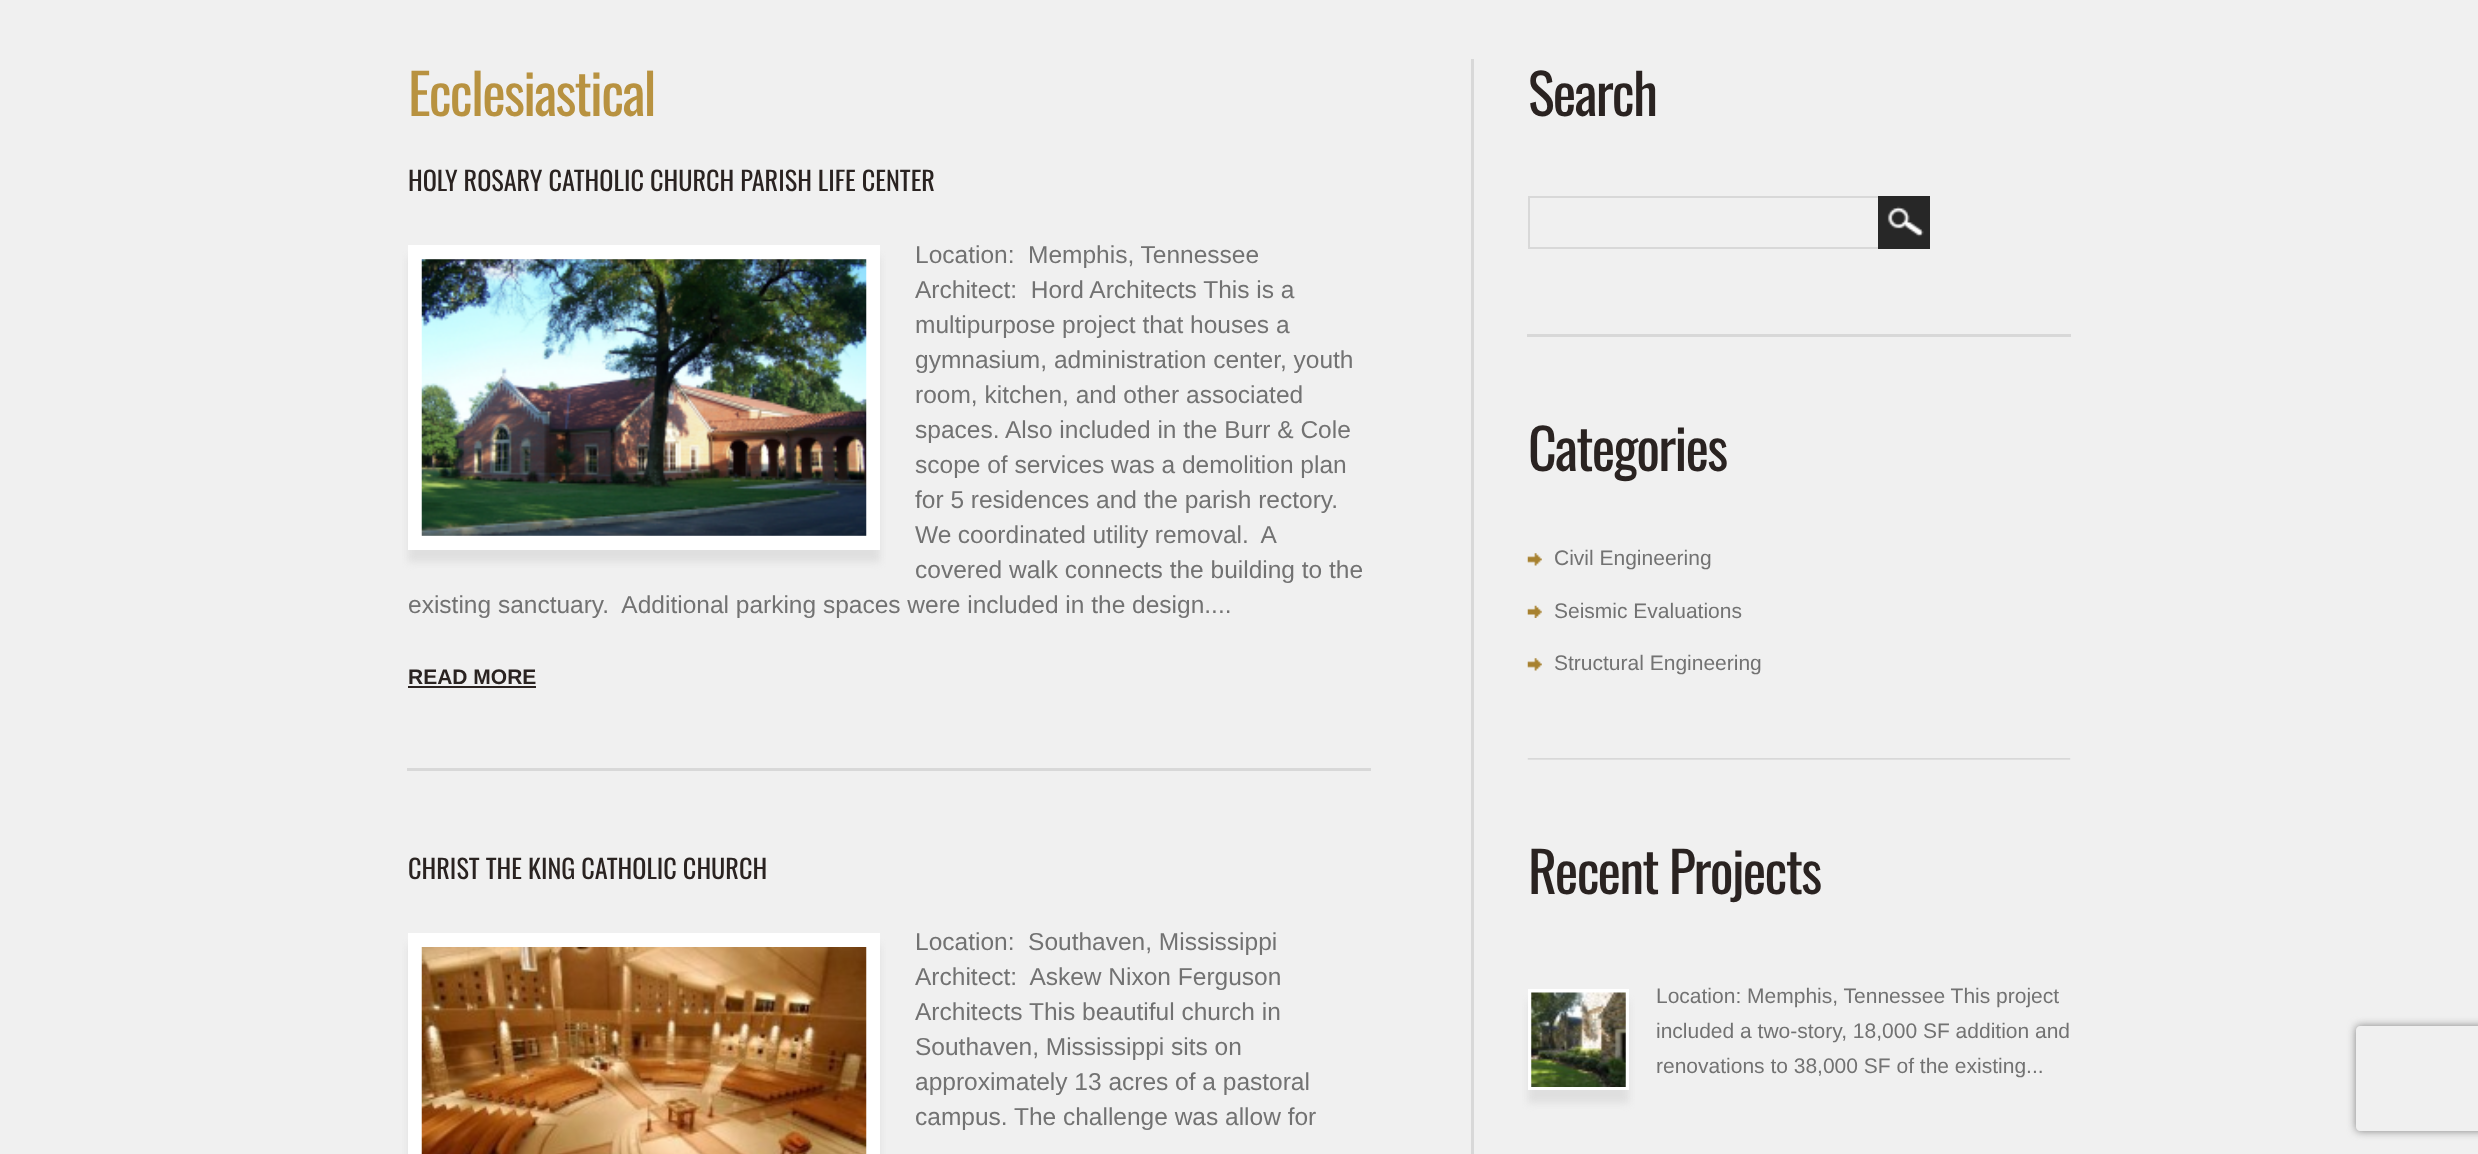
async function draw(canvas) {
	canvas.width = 2478;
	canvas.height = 1154;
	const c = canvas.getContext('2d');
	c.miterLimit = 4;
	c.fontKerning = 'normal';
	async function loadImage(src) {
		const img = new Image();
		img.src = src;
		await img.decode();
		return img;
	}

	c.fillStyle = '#f0f0f0';
	c.fillRect(0, 0, 2478, 1154);
	c.letterSpacing = '-1.75px';
	c.font = '56px Oswald';
	c.fillStyle = '#b89240';
	c.fillText('Ecclesiastical', 408, 116);
	c.fillStyle = '#d8d8d8';
	c.fillRect(407, 768, 964, 3);
	c.letterSpacing = '0px';
	c.font = '26.25px Oswald';
	c.fillStyle = '#2a2321';
	c.fillText('HOLY ROSARY CATHOLIC CHURCH PARISH LIFE CENTER', 408, 191);
	c.fillStyle = '#dfdfdf';
	c.filter = 'blur(3.5px)';
	c.beginPath();
	c.rect(408, 257, 472, 305);
	c.fill();
	c.filter = 'none';
	c.strokeStyle = '#fff';
	c.lineWidth = 14;
	c.strokeRect(415, 252, 458, 291);
	c.drawImage(await loadImage('img1.png'), 421, 259, 446, 277);
	c.font = '24.5px Liberation Sans';
	c.fillStyle = '#727272';
	for (const [text, x, y] of [
		['Location:  Memphis, Tennessee', 915, 263],
		['Architect:  Hord Architects This is a', 915, 298],
		['multipurpose project that houses a', 915, 333],
		['gymnasium, administration center, youth', 915, 368],
		['room, kitchen, and other associated', 915, 403],
		['spaces. Also included in the Burr & Cole', 915, 438],
		['scope of services was a demolition plan', 915, 473],
		['for 5 residences and the parish rectory.', 915, 508],
	]) {
		c.fillText(text, x, y);
	}
	c.wordSpacing = '-0.25px';
	c.fillText('We coordinated utility removal.  A', 915, 543);
	c.wordSpacing = '0px';
	c.fillText('covered walk connects the building to the', 915, 578);
	c.fillText('existing sanctuary.  Additional parking spaces were included in the design....', 408, 613);
	c.font = 'bold 21px Liberation Sans';
	c.fillStyle = '#2a2321';
	c.fillText('READ MORE', 408, 684);
	c.fillRect(408, 686, 128, 2);
	c.font = '26.25px Oswald';
	c.fillText('CHRIST THE KING CATHOLIC CHURCH', 408, 879);
	c.fillStyle = '#dfdfdf';
	c.filter = 'blur(3.5px)';
	c.beginPath();
	c.rect(408, 945, 472, 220);
	c.fill();
	c.filter = 'none';
	c.strokeRect(415, 940, 458, 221);
	c.drawImage(await loadImage('img2.png'), 421, 947, 446, 207);
	c.font = '24.5px Liberation Sans';
	c.fillStyle = '#727272';
	for (const [text, x, y] of [
		['Location:  Southaven, Mississippi', 915, 950],
		['Architect:  Askew Nixon Ferguson', 915, 985],
		['Architects This beautiful church in', 915, 1020],
		['Southaven, Mississippi sits on', 915, 1055],
		['approximately 13 acres of a pastoral', 915, 1090],
		['campus. The challenge was allow for', 915, 1125],
	]) {
		c.fillText(text, x, y);
	}
	c.fillStyle = '#d8d8d8';
	c.fillRect(1471, 59, 3, 1095);
	c.fillRect(1527, 334, 544, 3);
	c.letterSpacing = '-1.75px';
	c.font = '56px Oswald';
	c.fillStyle = '#2a2321';
	c.fillText('Search', 1528, 116);
	for (const [x, y, w, h, color] of [
		[1528, 196, 350, 2, '#d8d8d8'],
		[1528, 247, 350, 2, '#d8d8d8'],
		[1528, 196, 2, 53, '#d8d8d8'],
		[1878, 196, 52, 53, '#272727'],
	]) {
		c.fillStyle = color;
		c.fillRect(x, y, w, h);
	}
	c.drawImage(await loadImage('img3.png'), 1887, 206, 37, 31);
	c.drawImage(await loadImage('img4.png'), 1527, 758, 544, 2);
	c.fillStyle = '#2a2321';
	c.fillText('Categories', 1528, 471);
	c.drawImage(await loadImage('img5.png'), 1527, 553, 15, 13);
	c.letterSpacing = '0px';
	c.font = '21px Liberation Sans';
	c.fillStyle = '#727272';
	c.fillText('Civil Engineering', 1554, 565);
	c.drawImage(await loadImage('img6.png'), 1527, 605, 15, 13);
	c.fillText('Seismic Evaluations', 1554, 618);
	c.drawImage(await loadImage('img5.png'), 1527, 658, 15, 13);
	c.fillText('Structural Engineering', 1554, 670);
	c.letterSpacing = '-1.75px';
	c.font = '56px Oswald';
	c.fillStyle = '#2a2321';
	c.fillText('Recent Projects', 1528, 894);
	c.fillStyle = '#dfdfdf';
	c.filter = 'blur(3.5px)';
	c.beginPath();
	c.rect(1528, 1001, 101, 102);
	c.fill();
	c.filter = 'none';
	c.lineWidth = 4;
	c.strokeRect(1530, 991, 97, 97);
	c.drawImage(await loadImage('img7.png'), 1531, 992, 95, 95);
	c.letterSpacing = '0px';
	c.font = '21px Liberation Sans';
	c.fillStyle = '#727272';
	for (const [text, x, y] of [
		['Location: Memphis, Tennessee This project', 1656, 1003],
		['included a two-story, 18,000 SF addition and', 1656, 1038],
		['renovations to 38,000 SF of the existing...', 1656, 1073],
	]) {
		c.fillText(text, x, y);
	}
	c.save();
	c.beginPath();
	c.moveTo(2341, 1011);
	c.lineTo(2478, 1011);
	c.lineTo(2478, 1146);
	c.lineTo(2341, 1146);
	c.closePath();
	c.moveTo(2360, 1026);
	c.lineTo(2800, 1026);
	c.bezierCurveTo(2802, 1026, 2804, 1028, 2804, 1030);
	c.lineTo(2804, 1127);
	c.bezierCurveTo(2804, 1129, 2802, 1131, 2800, 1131);
	c.lineTo(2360, 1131);
	c.bezierCurveTo(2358, 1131, 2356, 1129, 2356, 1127);
	c.lineTo(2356, 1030);
	c.bezierCurveTo(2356, 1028, 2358, 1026, 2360, 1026);
	c.closePath();
	c.clip('evenodd');
	c.fillStyle = '#808080';
	c.filter = 'blur(4.5px)';
	c.beginPath();
	c.roundRect(2356, 1026, 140, 105, 4);
	c.fill();
	c.filter = 'none';
	c.restore();
}

draw(document.querySelector('canvas'));
